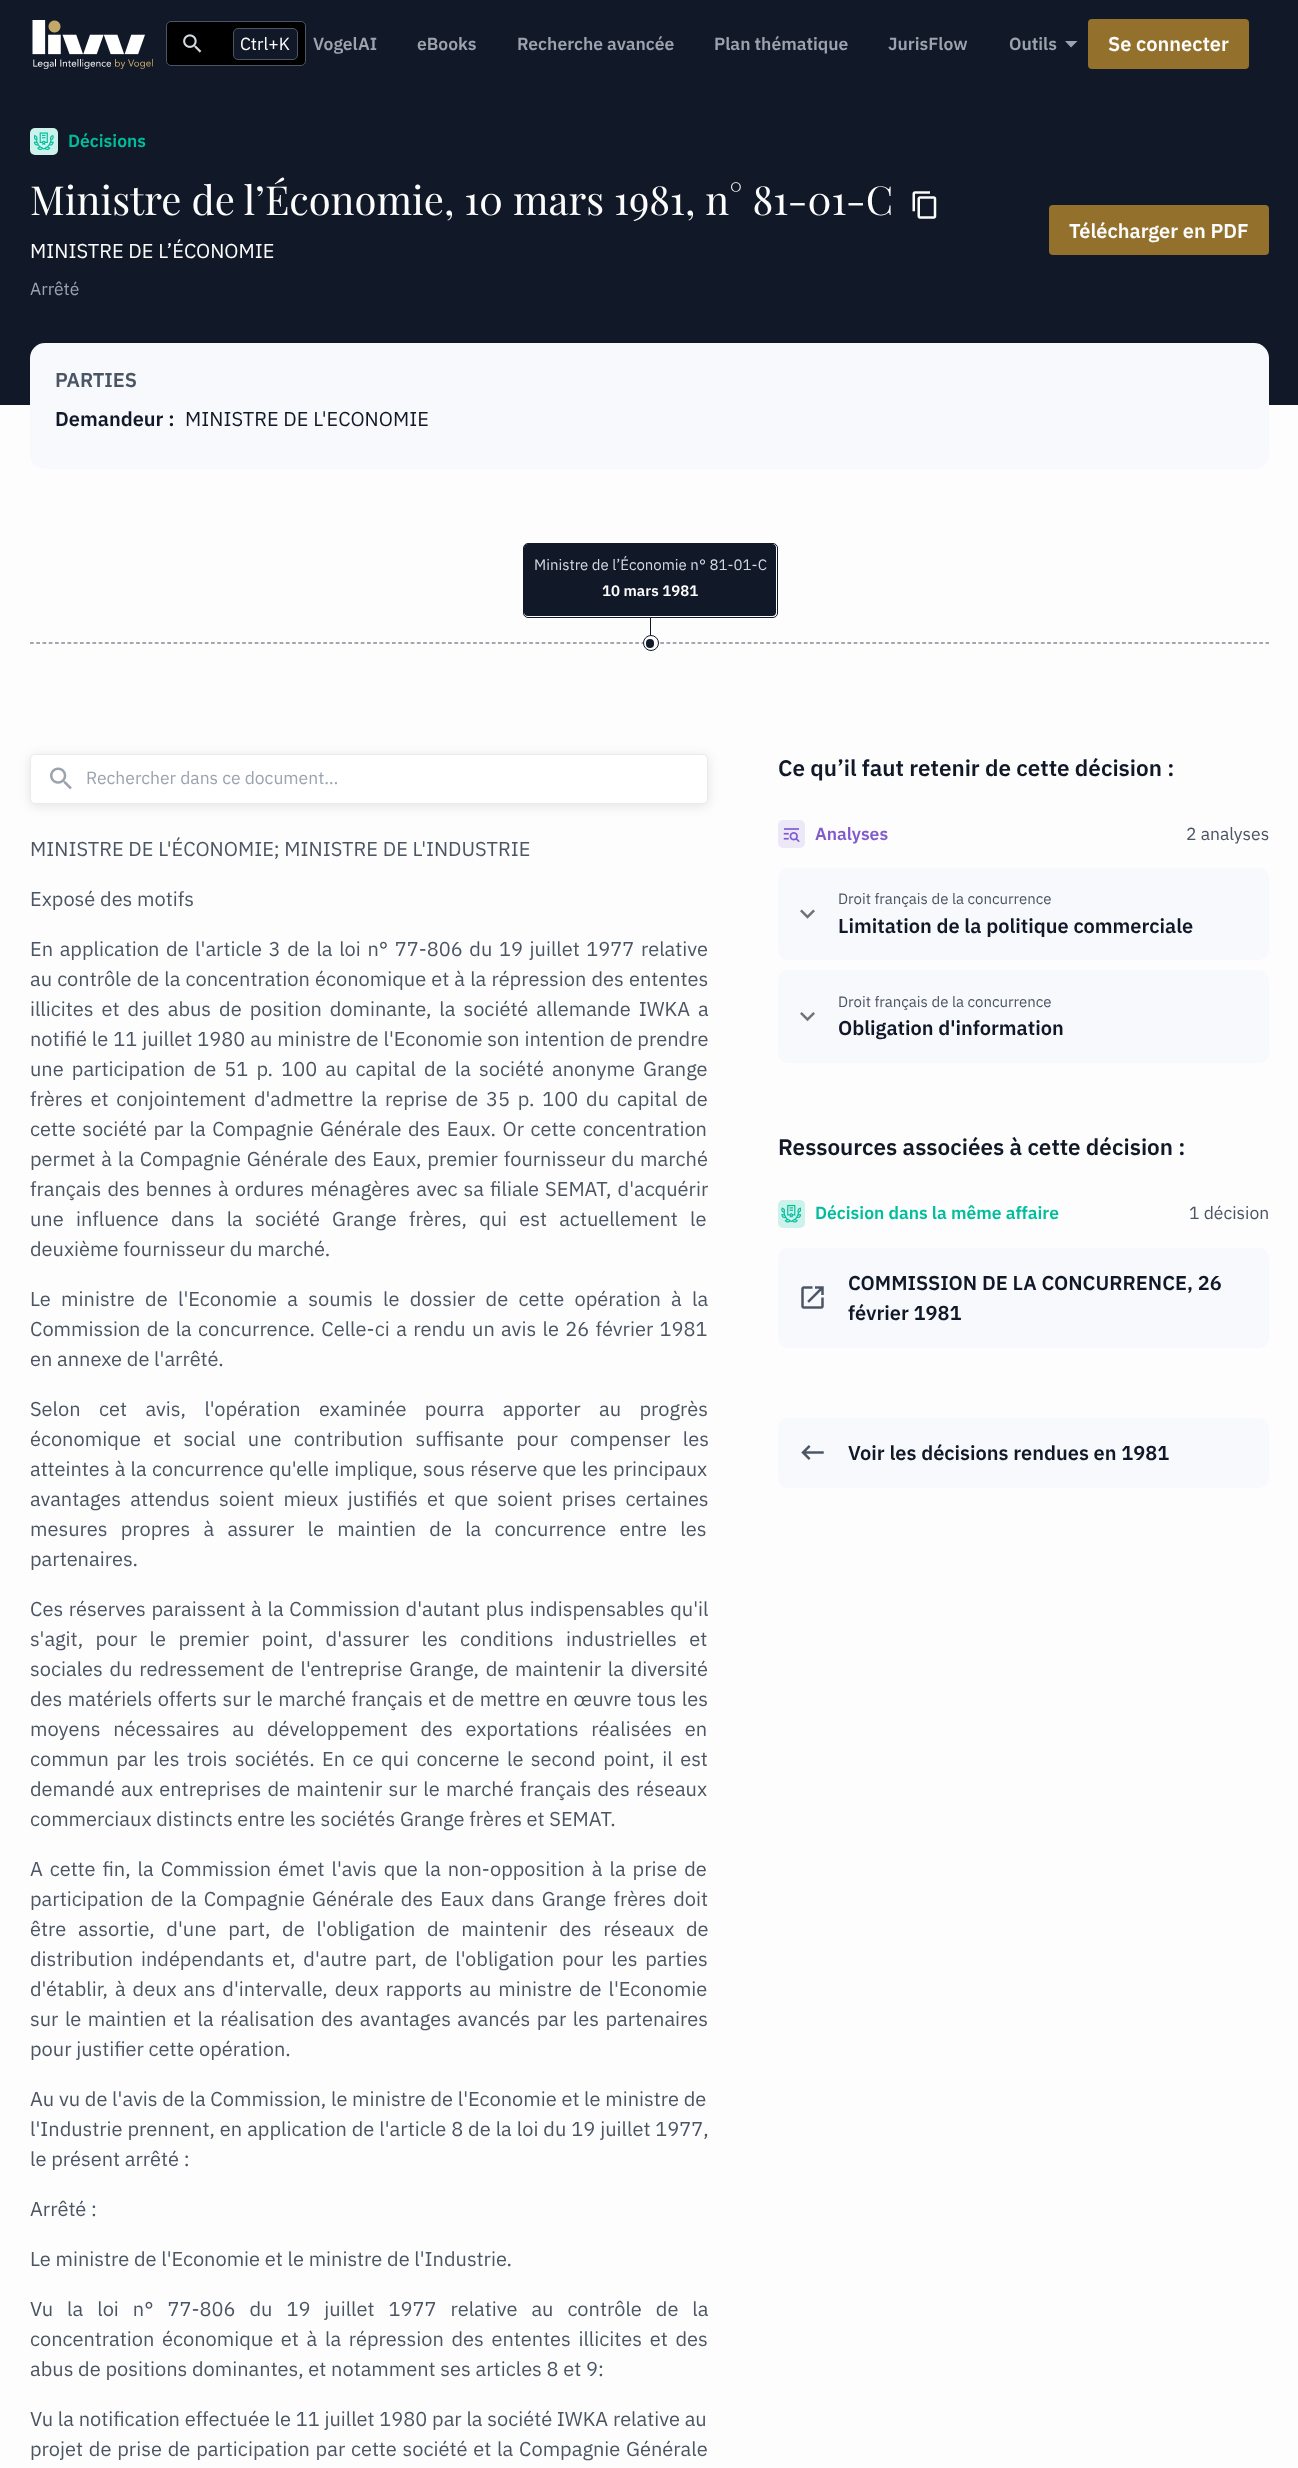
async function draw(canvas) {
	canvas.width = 1298;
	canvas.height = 2468;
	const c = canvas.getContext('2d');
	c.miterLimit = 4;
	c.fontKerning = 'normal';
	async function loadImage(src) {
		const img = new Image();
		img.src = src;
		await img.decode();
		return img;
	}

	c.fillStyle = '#fdfdfd';
	c.fillRect(0, 0, 1298, 2468);
	c.fillStyle = '#111827';
	c.fillRect(0, 0, 1298, 405);
	c.drawImage(await loadImage('img1.png'), 32, 20, 121, 49);
	c.fillStyle = '#000';
	c.beginPath();
	c.roundRect(166.5, 21.5, 139, 44, 4.5);
	c.fill();
	c.strokeStyle = '#4b5563';
	c.stroke();
	c.drawImage(await loadImage('img2.png'), 183, 34, 19, 19);
	c.fillStyle = '#111827';
	c.beginPath();
	c.roundRect(233.5, 28.5, 64, 31, 4.5);
	c.fill();
	c.stroke();
	c.font = '17.5px IBM Plex Sans';
	c.fillStyle = '#fdfdfd';
	c.fillText('Ctrl+K', 240, 50);
	c.font = '600 17.5px IBM Plex Sans';
	c.fillStyle = '#9ca3af';
	for (const [text, x, y] of [
		['VogelAI', 313, 50],
		['eBooks', 417, 50],
		['Recherche avancée', 517, 50],
		['Plan thématique', 714, 50],
		['JurisFlow', 888, 50],
		['Outils', 1009, 50],
	]) {
		c.fillText(text, x, y);
	}
	c.beginPath();
	c.moveTo(1065, 41);
	c.lineTo(1071, 47.5);
	c.lineTo(1077.5, 41);
	c.closePath();
	c.fill();
	c.fillStyle = '#93712c';
	c.beginPath();
	c.roundRect(1088, 19, 161, 50, 4);
	c.fill();
	c.font = '600 20px IBM Plex Sans';
	c.fillStyle = '#fdfdfd';
	c.fillText('Se connecter', 1108, 51);
	c.fillStyle = '#ccf2eb';
	c.beginPath();
	c.roundRect(30, 128, 28, 27, 5);
	c.fill();
	c.drawImage(await loadImage('img3.png'), 34, 132, 20, 18);
	c.font = '600 17.5px IBM Plex Sans';
	c.fillStyle = '#00be9c';
	c.fillText('Décisions', 68, 147);
	c.font = '40px Playfair Display';
	c.fillStyle = '#fdfdfd';
	c.fillText('Ministre de l’Économie, 10 mars 1981, n° 81-01-C', 30, 215);
	c.drawImage(await loadImage('img4.png'), 912, 191, 25, 28);
	c.font = '20px IBM Plex Sans';
	c.fillText('MINISTRE DE L’ÉCONOMIE', 30, 258);
	c.fillStyle = '#93712c';
	c.beginPath();
	c.roundRect(1049, 205, 220, 50, 4);
	c.fill();
	c.font = '600 20px IBM Plex Sans';
	c.fillStyle = '#fdfdfd';
	c.fillText('Télécharger en PDF', 1069, 238);
	c.font = '17.5px IBM Plex Sans';
	c.fillStyle = '#9ca3af';
	c.fillText('Arrêté', 30, 295);
	c.fillStyle = '#f7f9fc';
	c.beginPath();
	c.roundRect(30, 343, 1239, 126, 15);
	c.fill();
	c.font = '600 20px IBM Plex Sans';
	c.fillStyle = '#4b5563';
	c.fillText('PARTIES', 55, 387);
	c.fillStyle = '#111827';
	c.fillText('Demandeur :', 55, 426);
	c.font = '20px IBM Plex Sans';
	c.fillText('MINISTRE DE L\'ECONOMIE', 185, 426);
	c.beginPath();
	c.roundRect(523.5, 543.5, 254, 74, 4.5);
	c.strokeStyle = '#111827';
	c.stroke();
	c.beginPath();
	c.roundRect(524, 544, 252, 72, 4);
	c.fill();
	c.font = '15px IBM Plex Sans';
	c.fillStyle = '#d2d9e2';
	c.fillText('Ministre de l’Économie n° 81-01-C', 534, 570);
	c.font = '600 15px IBM Plex Sans';
	c.fillStyle = '#fdfdfd';
	c.fillText('10 mars 1981', 602, 596);
	c.beginPath();
	c.moveTo(30, 643);
	c.lineTo(1269, 643);
	c.strokeStyle = '#4b5563';
	c.lineWidth = 1.2;
	c.setLineDash([3.75, 2.49]);
	c.stroke();
	c.beginPath();
	c.arc(651, 643, 7.5, 0, 2 * Math.PI);
	c.fill();
	c.strokeStyle = '#111827';
	c.lineWidth = 1;
	c.setLineDash([]);
	c.stroke();
	c.fillStyle = '#111827';
	c.fillRect(650, 618, 1, 17);
	c.beginPath();
	c.roundRect(646, 639, 8, 9, 4);
	c.fill();
	c.fillStyle = '#0000001a';
	c.filter = 'blur(6px)';
	c.beginPath();
	c.roundRect(30, 756, 678, 50, 5);
	c.fill();
	c.filter = 'none';
	c.fillStyle = '#fff';
	c.beginPath();
	c.roundRect(30.5, 754.5, 677, 49, 4.5);
	c.fill();
	c.strokeStyle = '#e7ebf2';
	c.stroke();
	c.drawImage(await loadImage('img5.png'), 50, 767, 22, 23);
	c.font = '17.5px IBM Plex Sans';
	c.fillStyle = '#9ca3af';
	c.fillText('Rechercher dans ce document…', 86, 784);
	c.font = '20px IBM Plex Sans';
	c.fillStyle = '#4b5563';
	c.fillText('MINISTRE DE L\'ÉCONOMIE; MINISTRE DE L\'INDUSTRIE', 30, 856);
	c.fillText('Exposé des motifs', 30, 906);
	c.wordSpacing = '1.9px';
	c.fillText('En application de l\'article 3 de la loi n° 77-806 du 19 juillet 1977 relative', 30, 956);
	c.wordSpacing = '0.4px';
	c.fillText('au contrôle de la concentration économique et à la répression des ententes', 30, 986);
	c.wordSpacing = '3.25px';
	c.fillText('illicites et des abus de position dominante, la société allemande IWKA a', 30, 1016);
	c.wordSpacing = '0.25px';
	c.fillText('notifié le 11 juillet 1980 au ministre de l\'Economie son intention de prendre', 30, 1046);
	c.wordSpacing = '3.4px';
	c.fillText('une participation de 51 p. 100 au capital de la société anonyme Grange', 30, 1076);
	c.wordSpacing = '3.1px';
	c.fillText('frères et conjointement d\'admettre la reprise de 35 p. 100 du capital de', 30, 1106);
	c.wordSpacing = '1.75px';
	c.fillText('cette société par la Compagnie Générale des Eaux. Or cette concentration', 30, 1136);
	c.wordSpacing = '1.1px';
	c.fillText('permet à la Compagnie Générale des Eaux, premier fournisseur du marché', 30, 1166);
	c.wordSpacing = '1.4px';
	c.fillText('français des bennes à ordures ménagères avec sa filiale SEMAT, d\'acquérir', 30, 1196);
	c.wordSpacing = '7.5px';
	c.fillText('une influence dans la société Grange frères, qui est actuellement le', 30, 1226);
	c.wordSpacing = '0px';
	c.fillText('deuxième fournisseur du marché.', 30, 1256);
	c.wordSpacing = '5.6px';
	c.fillText('Le ministre de l\'Economie a soumis le dossier de cette opération à la', 30, 1306);
	c.wordSpacing = '1.6px';
	c.fillText('Commission de la concurrence. Celle-ci a rendu un avis le 26 février 1981', 30, 1336);
	c.wordSpacing = '0px';
	c.fillText('en annexe de l\'arrêté.', 30, 1366);
	c.wordSpacing = '13.75px';
	c.fillText('Selon cet avis, l\'opération examinée pourra apporter au progrès', 30, 1416);
	c.wordSpacing = '7.5px';
	c.fillText('économique et social une contribution suffisante pour compenser les', 30, 1446);
	c.wordSpacing = '0.5px';
	c.fillText('atteintes à la concurrence qu\'elle implique, sous réserve que les principaux', 30, 1476);
	c.wordSpacing = '4.5px';
	c.fillText('avantages attendus soient mieux justifiés et que soient prises certaines', 30, 1506);
	c.wordSpacing = '8.5px';
	c.fillText('mesures propres à assurer le maintien de la concurrence entre les', 30, 1536);
	c.wordSpacing = '0px';
	c.fillText('partenaires.', 30, 1566);
	c.wordSpacing = '1px';
	c.fillText('Ces réserves paraissent à la Commission d\'autant plus indispensables qu\'il', 30, 1616);
	c.wordSpacing = '7.75px';
	c.fillText('s\'agit, pour le premier point, d\'assurer les conditions industrielles et', 30, 1646);
	c.wordSpacing = '2px';
	c.fillText('sociales du redressement de l\'entreprise Grange, de maintenir la diversité', 30, 1676);
	c.wordSpacing = '0.75px';
	c.fillText('des matériels offerts sur le marché français et de mettre en œuvre tous les', 30, 1706);
	c.wordSpacing = '8px';
	c.fillText('moyens nécessaires au développement des exportations réalisées en', 30, 1736);
	c.wordSpacing = '2.75px';
	c.fillText('commun par les trois sociétés. En ce qui concerne le second point, il est', 30, 1766);
	c.wordSpacing = '1.5px';
	c.fillText('demandé aux entreprises de maintenir sur le marché français des réseaux', 30, 1796);
	c.wordSpacing = '0px';
	c.fillText('commerciaux distincts entre les sociétés Grange frères et SEMAT.', 30, 1826);
	c.wordSpacing = '2.25px';
	c.fillText('A cette fin, la Commission émet l\'avis que la non-opposition à la prise de', 30, 1876);
	c.wordSpacing = '2.4px';
	c.fillText('participation de la Compagnie Générale des Eaux dans Grange frères doit', 30, 1906);
	c.wordSpacing = '7px';
	c.fillText('être assortie, d\'une part, de l\'obligation de maintenir des réseaux de', 30, 1936);
	c.wordSpacing = '3.1px';
	c.fillText('distribution indépendants et, d\'autre part, de l\'obligation pour les parties', 30, 1966);
	c.wordSpacing = '2.25px';
	c.fillText('d\'établir, à deux ans d\'intervalle, deux rapports au ministre de l\'Economie', 30, 1996);
	c.wordSpacing = '1.75px';
	c.fillText('sur le maintien et la réalisation des avantages avancés par les partenaires', 30, 2026);
	c.wordSpacing = '0px';
	c.fillText('pour justifier cette opération.', 30, 2056);
	c.fillText('Au vu de l\'avis de la Commission, le ministre de l\'Economie et le ministre de', 30, 2106);
	c.wordSpacing = '0.25px';
	c.fillText('l\'Industrie prennent, en application de l\'article 8 de la loi du 19 juillet 1977,', 30, 2136);
	c.wordSpacing = '0px';
	for (const [text, x, y] of [
		['le présent arrêté :', 30, 2166],
		['Arrêté :', 30, 2216],
		['Le ministre de l\'Economie et le ministre de l\'Industrie.', 30, 2266],
	]) {
		c.fillText(text, x, y);
	}
	c.wordSpacing = '9.25px';
	c.fillText('Vu la loi n° 77-806 du 19 juillet 1977 relative au contrôle de la', 30, 2316);
	c.wordSpacing = '3px';
	c.fillText('concentration économique et à la répression des ententes illicites et des', 30, 2346);
	c.wordSpacing = '0px';
	c.fillText('abus de positions dominantes, et notamment ses articles 8 et 9:', 30, 2376);
	c.fillText('Vu la notification effectuée le 11 juillet 1980 par la société IWKA relative au', 30, 2426);
	c.wordSpacing = '1.1px';
	c.fillText('projet de prise de participation par cette société et la Compagnie Générale', 30, 2456);
	c.wordSpacing = '0px';
	c.font = '600 22.5px IBM Plex Sans';
	c.fillStyle = '#111827';
	c.fillText('Ce qu’il faut retenir de cette décision :', 778, 776);
	c.fillStyle = '#ede8f8';
	c.beginPath();
	c.roundRect(778, 820, 27, 28, 5);
	c.fill();
	c.drawImage(await loadImage('img6.png'), 783, 828, 17, 14);
	c.font = '600 17.5px IBM Plex Sans';
	c.fillStyle = '#825acc';
	c.fillText('Analyses', 815, 840);
	c.font = '17.5px IBM Plex Sans';
	c.fillStyle = '#4b5563';
	c.fillText('2 analyses', 1186, 840);
	c.fillStyle = '#f7f9fc';
	c.beginPath();
	c.roundRect(778, 868, 491, 92, 10);
	c.fill();
	c.drawImage(await loadImage('img7.png'), 800, 909, 15, 10);
	c.font = '15px IBM Plex Sans';
	c.fillStyle = '#4b5563';
	c.fillText('Droit français de la concurrence', 838, 904);
	c.font = '600 20px IBM Plex Sans';
	c.fillStyle = '#111827';
	c.fillText('Limitation de la politique commerciale', 838, 933);
	c.fillStyle = '#f7f9fc';
	c.beginPath();
	c.roundRect(778, 970, 491, 93, 10);
	c.fill();
	c.drawImage(await loadImage('img8.png'), 800, 1012, 15, 10);
	c.font = '15px IBM Plex Sans';
	c.fillStyle = '#4b5563';
	c.fillText('Droit français de la concurrence', 838, 1007);
	c.font = '600 20px IBM Plex Sans';
	c.fillStyle = '#111827';
	c.fillText('Obligation d\'information', 838, 1035);
	c.font = '600 22.5px IBM Plex Sans';
	c.fillText('Ressources associées à cette décision :', 778, 1155);
	c.fillStyle = '#ccf2eb';
	c.beginPath();
	c.roundRect(778, 1200, 27, 28, 5);
	c.fill();
	c.drawImage(await loadImage('img9.png'), 781, 1204, 20, 19);
	c.font = '600 17.5px IBM Plex Sans';
	c.fillStyle = '#00be9c';
	c.fillText('Décision dans la même affaire', 815, 1219);
	c.font = '17.5px IBM Plex Sans';
	c.fillStyle = '#4b5563';
	c.fillText('1 décision', 1189, 1219);
	c.fillStyle = '#f7f9fc';
	c.beginPath();
	c.roundRect(778, 1248, 491, 100, 10);
	c.fill();
	c.drawImage(await loadImage('img10.png'), 801, 1286, 23, 23);
	c.font = '600 20px IBM Plex Sans';
	c.fillStyle = '#111827';
	c.fillText('COMMISSION DE LA CONCURRENCE, 26', 848, 1290);
	c.fillText('février 1981', 848, 1320);
	c.fillStyle = '#f7f9fc';
	c.beginPath();
	c.roundRect(778, 1418, 491, 70, 10);
	c.fill();
	c.drawImage(await loadImage('img11.png'), 801, 1445, 23, 15);
	c.fillStyle = '#111827';
	c.fillText('Voir les décisions rendues en 1981', 848, 1460);
}

draw(document.querySelector('canvas'));
